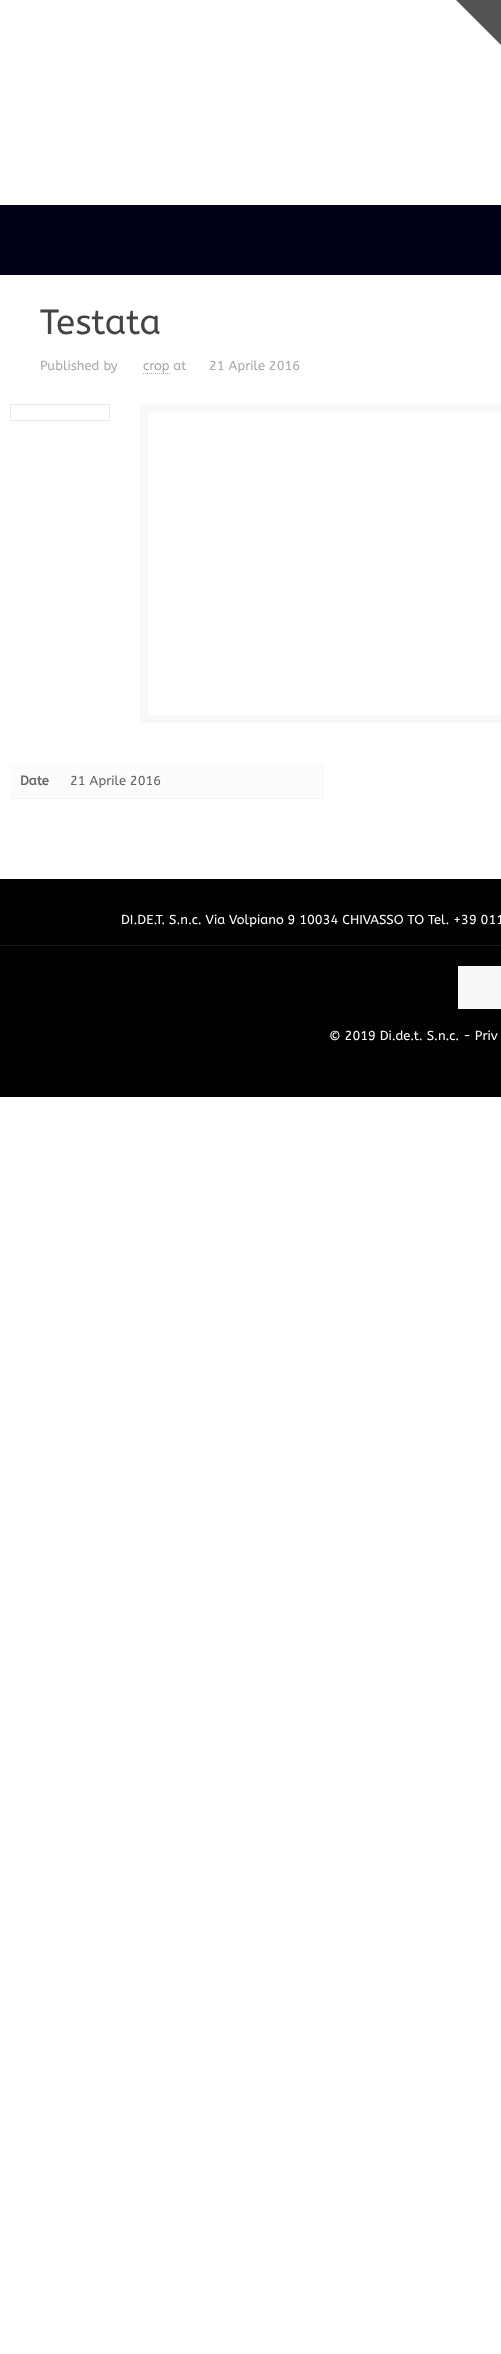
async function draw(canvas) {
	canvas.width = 501;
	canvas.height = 2354;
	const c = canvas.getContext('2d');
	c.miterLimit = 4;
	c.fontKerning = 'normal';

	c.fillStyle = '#fff';
	c.fillRect(0, 0, 501, 2354);
	c.fillStyle = '#545454';
	c.beginPath();
	c.moveTo(501, 0);
	c.lineTo(501, 45);
	c.lineTo(456, 0);
	c.closePath();
	c.fill();
	c.fillStyle = '#000119';
	c.fillRect(0, 205, 501, 70);
	c.font = '35px ABeeZee';
	c.fillStyle = '#444';
	c.fillText('Testata', 40, 334);
	c.font = '13px ABeeZee';
	c.fillStyle = '#a8a8a8';
	c.fillText('Published by', 40, 370);
	c.fillText('crop at', 143, 370);
	c.beginPath();
	c.moveTo(143, 373.5);
	c.lineTo(170, 373.5);
	c.strokeStyle = '#a8a8a8';
	c.setLineDash([1, 1]);
	c.stroke();
	c.fillText('21 Aprile 2016', 209, 370);
	c.strokeStyle = '#ebebeb';
	c.setLineDash([]);
	c.strokeRect(10.5, 404.5, 99, 16);
	c.strokeStyle = '#f8f8f8';
	c.lineWidth = 8;
	c.strokeRect(144, 408, 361, 311);
	c.fillStyle = '#fcfcfc';
	c.fillRect(10, 763, 313, 36);
	c.fillStyle = '#f4f4f4';
	c.beginPath();
	c.moveTo(323, 763);
	c.lineTo(323, 799);
	c.lineTo(322, 798);
	c.lineTo(322, 763);
	c.closePath();
	c.fill();
	c.fillStyle = '#00000008';
	c.beginPath();
	c.moveTo(323, 799);
	c.lineTo(10, 799);
	c.lineTo(10, 798);
	c.lineTo(322, 798);
	c.closePath();
	c.fill();
	c.font = 'bold 13px ABeeZee';
	c.fillStyle = '#626262';
	c.fillText('Date', 20, 785);
	c.font = '13px ABeeZee';
	c.fillText('21 Aprile 2016', 70, 785);
	c.fillStyle = '#000';
	c.fillRect(0, 879, 501, 218);
	c.fillStyle = '#fff';
	c.fillText('DI.DE.T. S.n.c. Via Volpiano 9 10034 CHIVASSO TO Tel. +39 011', 121, 924);
	c.fillStyle = '#1a1a1a';
	c.fillRect(0, 945, 501, 1);
	c.fillStyle = '#f7f7f7';
	c.fillRect(458, 966, 43, 43);
	c.fillStyle = '#fff';
	c.fillText('© 2019 Di.de.t. S.n.c. - Priv', 329, 1040);
}

draw(document.querySelector('canvas'));
